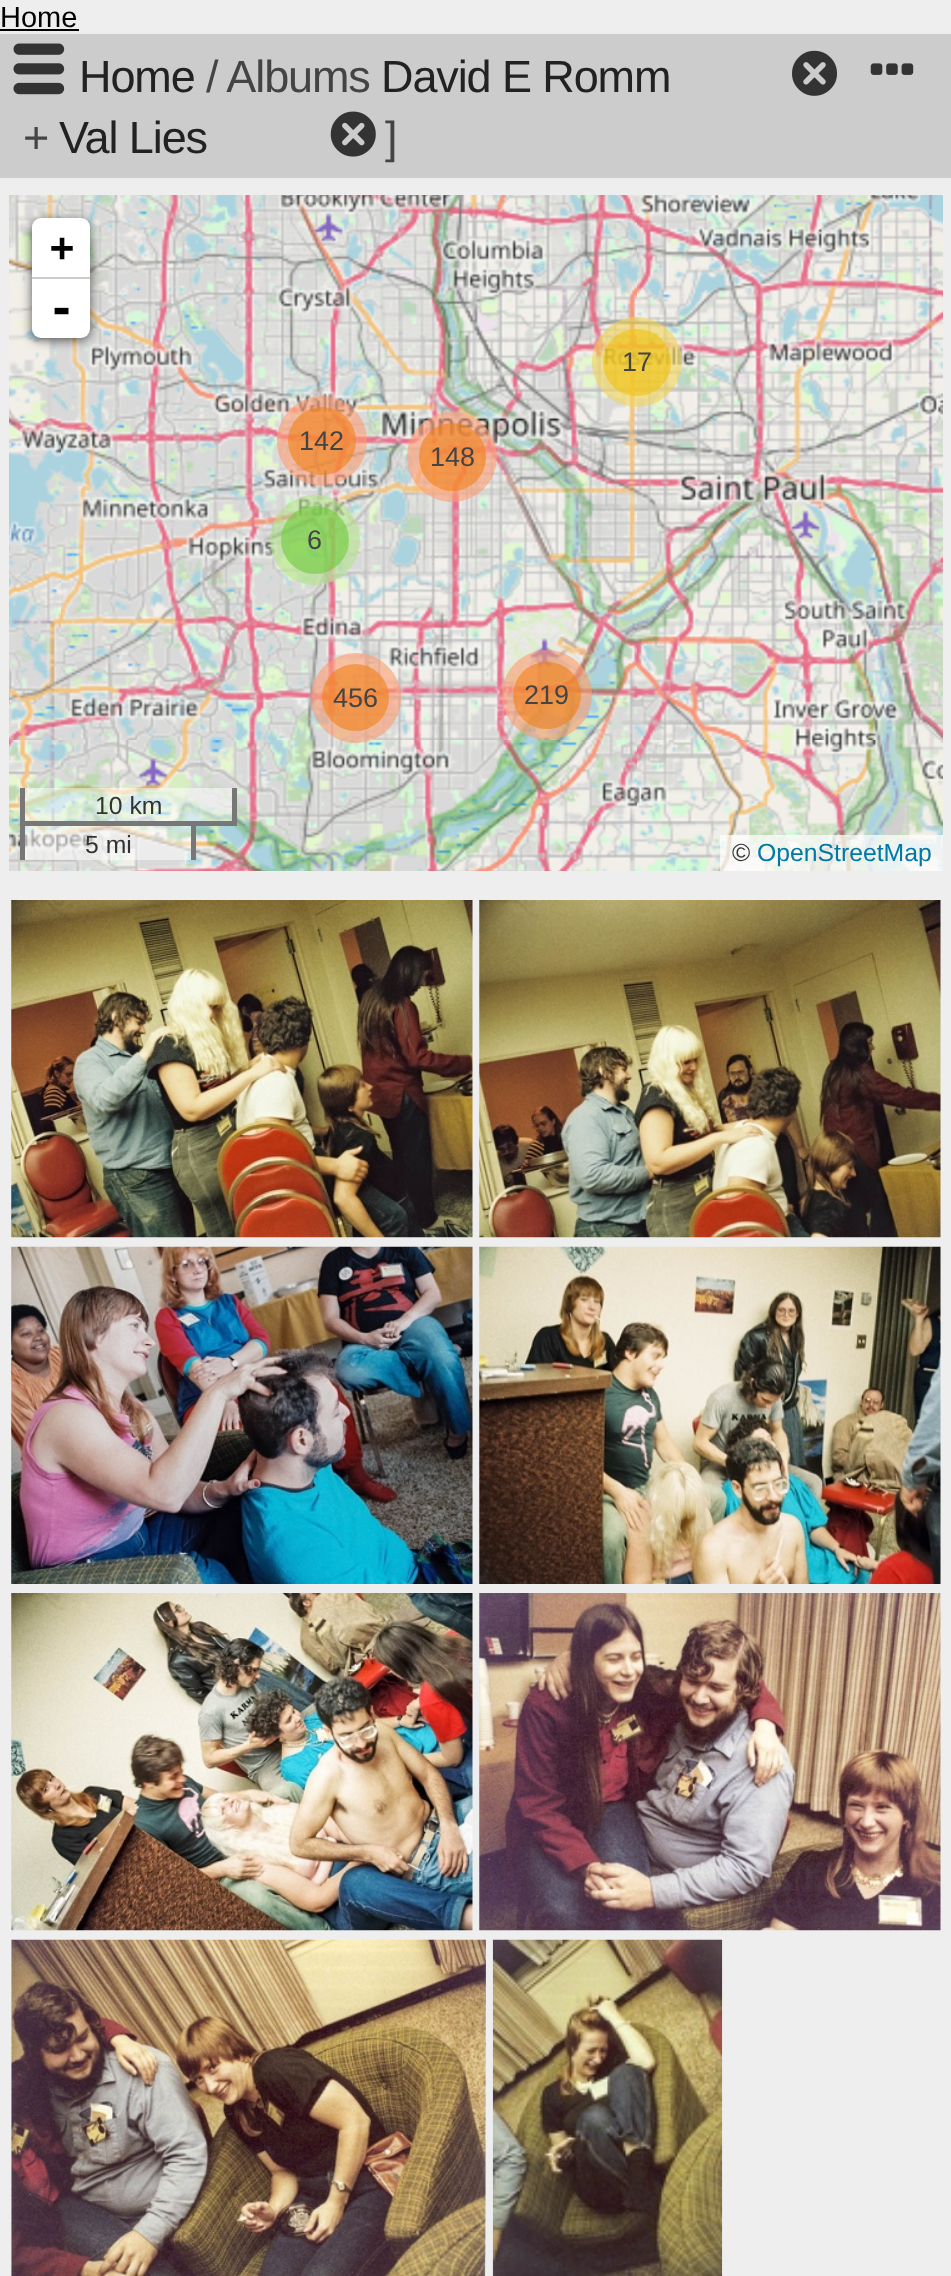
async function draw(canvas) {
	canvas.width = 951;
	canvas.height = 2276;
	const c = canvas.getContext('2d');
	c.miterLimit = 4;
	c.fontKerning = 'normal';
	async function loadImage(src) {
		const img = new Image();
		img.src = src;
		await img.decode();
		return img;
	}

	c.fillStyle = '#eee';
	c.fillRect(0, 0, 951, 2276);
	c.font = '29px Liberation Sans';
	c.fillStyle = '#000';
	c.fillText('Home', 0, 27);
	c.fillRect(0, 29, 79, 2);
	c.fillStyle = '#ccc';
	c.fillRect(0, 34, 951, 144);
	c.drawImage(await loadImage('img1.png'), 13, 43, 52, 52);
	c.letterSpacing = '-1.1px';
	c.font = '45px Liberation Sans';
	c.fillStyle = '#222';
	c.fillText('Home', 79, 92);
	c.fillStyle = '#444';
	c.fillText('/ Albums', 206, 92);
	c.fillStyle = '#222';
	c.fillText('David E Romm', 381, 92);
	c.drawImage(await loadImage('img2.png'), 792, 50, 45, 46);
	c.fillStyle = '#444';
	c.fillText('+', 23, 153);
	c.fillStyle = '#222';
	c.fillText('Val Lies', 59, 153);
	c.drawImage(await loadImage('img3.png'), 330, 111, 46, 46);
	c.fillStyle = '#444';
	c.fillText(']', 385, 153);
	c.drawImage(await loadImage('img4.png'), 870, 63, 44, 12);
	c.drawImage(await loadImage('img5.png'), 9, 195, 52, 545);
	c.drawImage(await loadImage('img6.png'), 61, 195, 576, 545);
	c.fillStyle = '#000000a6';
	c.filter = 'blur(5.5px)';
	c.beginPath();
	c.roundRect(32, 221, 58, 119, 9);
	c.fill();
	c.filter = 'none';
	c.fillStyle = '#fff';
	c.beginPath();
	c.roundRect(32, 218, 58, 61, [9, 9, 0, 0]);
	c.fill();
	c.fillStyle = '#ccc';
	c.fillRect(32, 277, 58, 2);
	c.letterSpacing = '0px';
	c.font = 'bold 40px DejaVu Sans Mono';
	c.fillStyle = '#000';
	c.fillText('+', 50, 261);
	c.fillStyle = '#fff';
	c.beginPath();
	c.roundRect(32, 279, 58, 59, [0, 0, 9, 9]);
	c.fill();
	c.font = 'bold 45px DejaVu Sans Mono';
	c.fillStyle = '#000';
	c.fillText('-', 48, 324);
	c.drawImage(await loadImage('img8.png'), 9, 740, 52, 131);
	c.drawImage(await loadImage('img9.png'), 61, 740, 576, 131);
	for (const [x, y, w, h, color] of [
		[25, 788, 207, 33, '#ffffff80'],
		[232, 788, 5, 38, '#777'],
		[196, 821, 40, 5, '#777'],
		[20, 788, 5, 38, '#777'],
	]) {
		c.fillStyle = color;
		c.fillRect(x, y, w, h);
	}
	c.font = '24.75px Liberation Sans';
	c.fillStyle = '#333';
	c.fillText('10 km', 95, 814);
	for (const [x, y, w, h, color] of [
		[25, 826, 166, 34, '#ffffff80'],
		[20, 821, 176, 5, '#777'],
		[191, 821, 5, 39, '#777'],
		[20, 821, 5, 39, '#777'],
	]) {
		c.fillStyle = color;
		c.fillRect(x, y, w, h);
	}
	c.fillStyle = '#333';
	c.fillText('5 mi', 85, 853);
	c.drawImage(await loadImage('img10.png'), 637, 740, 306, 131);
	c.fillStyle = '#ffffffb3';
	c.fillRect(720, 835, 223, 36);
	c.fillStyle = '#333';
	c.fillText('©', 732, 861);
	c.fillStyle = '#0078a8';
	c.fillText('OpenStreetMap', 757, 861);
	c.drawImage(await loadImage('img7.png'), 637, 195, 306, 545);
	c.fillStyle = '#f1d35799';
	c.beginPath();
	c.arc(637, 362, 45, 0, 2 * Math.PI);
	c.fill();
	c.fillStyle = '#f0c20c99';
	c.beginPath();
	c.roundRect(603, 329, 68, 67, 33.5);
	c.fill();
	c.font = '27px Liberation Sans';
	c.fillStyle = '#444';
	c.fillText('17', 622, 371);
	c.fillStyle = '#fd9c7399';
	c.beginPath();
	c.arc(322, 441, 45, 0, 2 * Math.PI);
	c.fill();
	c.fillStyle = '#f1801799';
	c.beginPath();
	c.arc(322, 441, 34, 0, 2 * Math.PI);
	c.fill();
	c.fillStyle = '#444';
	c.fillText('142', 299, 450);
	c.fillStyle = '#fd9c7399';
	c.beginPath();
	c.arc(452, 457, 45, 0, 2 * Math.PI);
	c.fill();
	c.fillStyle = '#f1801799';
	c.beginPath();
	c.roundRect(419, 423, 67, 68, 33.5);
	c.fill();
	c.fillStyle = '#444';
	c.fillText('148', 430, 466);
	c.fillStyle = '#b5e28c99';
	c.beginPath();
	c.arc(315, 540, 45, 0, 2 * Math.PI);
	c.fill();
	c.fillStyle = '#6ecc3999';
	c.beginPath();
	c.arc(315, 540, 34, 0, 2 * Math.PI);
	c.fill();
	c.fillStyle = '#444';
	c.fillText('6', 307, 549);
	c.fillStyle = '#fd9c7399';
	c.beginPath();
	c.arc(356, 698, 45, 0, 2 * Math.PI);
	c.fill();
	c.fillStyle = '#f1801799';
	c.beginPath();
	c.arc(355.5, 697.5, 33.5, 0, 2 * Math.PI);
	c.fill();
	c.fillStyle = '#444';
	c.fillText('456', 333, 707);
	c.fillStyle = '#fd9c7399';
	c.beginPath();
	c.arc(547, 695, 45, 0, 2 * Math.PI);
	c.fill();
	c.fillStyle = '#f1801799';
	c.beginPath();
	c.roundRect(513, 662, 68, 67, 33.5);
	c.fill();
	c.fillStyle = '#444';
	c.fillText('219', 524, 704);
	c.drawImage(await loadImage('img11.png'), 11, 900, 462, 338);
	c.drawImage(await loadImage('img12.png'), 479, 900, 462, 338);
	c.drawImage(await loadImage('img13.png'), 11, 1246, 462, 338);
	c.drawImage(await loadImage('img14.png'), 479, 1246, 462, 338);
	c.drawImage(await loadImage('img15.png'), 11, 1593, 462, 338);
	c.drawImage(await loadImage('img16.png'), 479, 1593, 462, 338);
	c.drawImage(await loadImage('img17.png'), 11, 1939, 475, 337);
	c.drawImage(await loadImage('img18.png'), 492, 1939, 231, 337);
}

draw(document.querySelector('canvas'));
